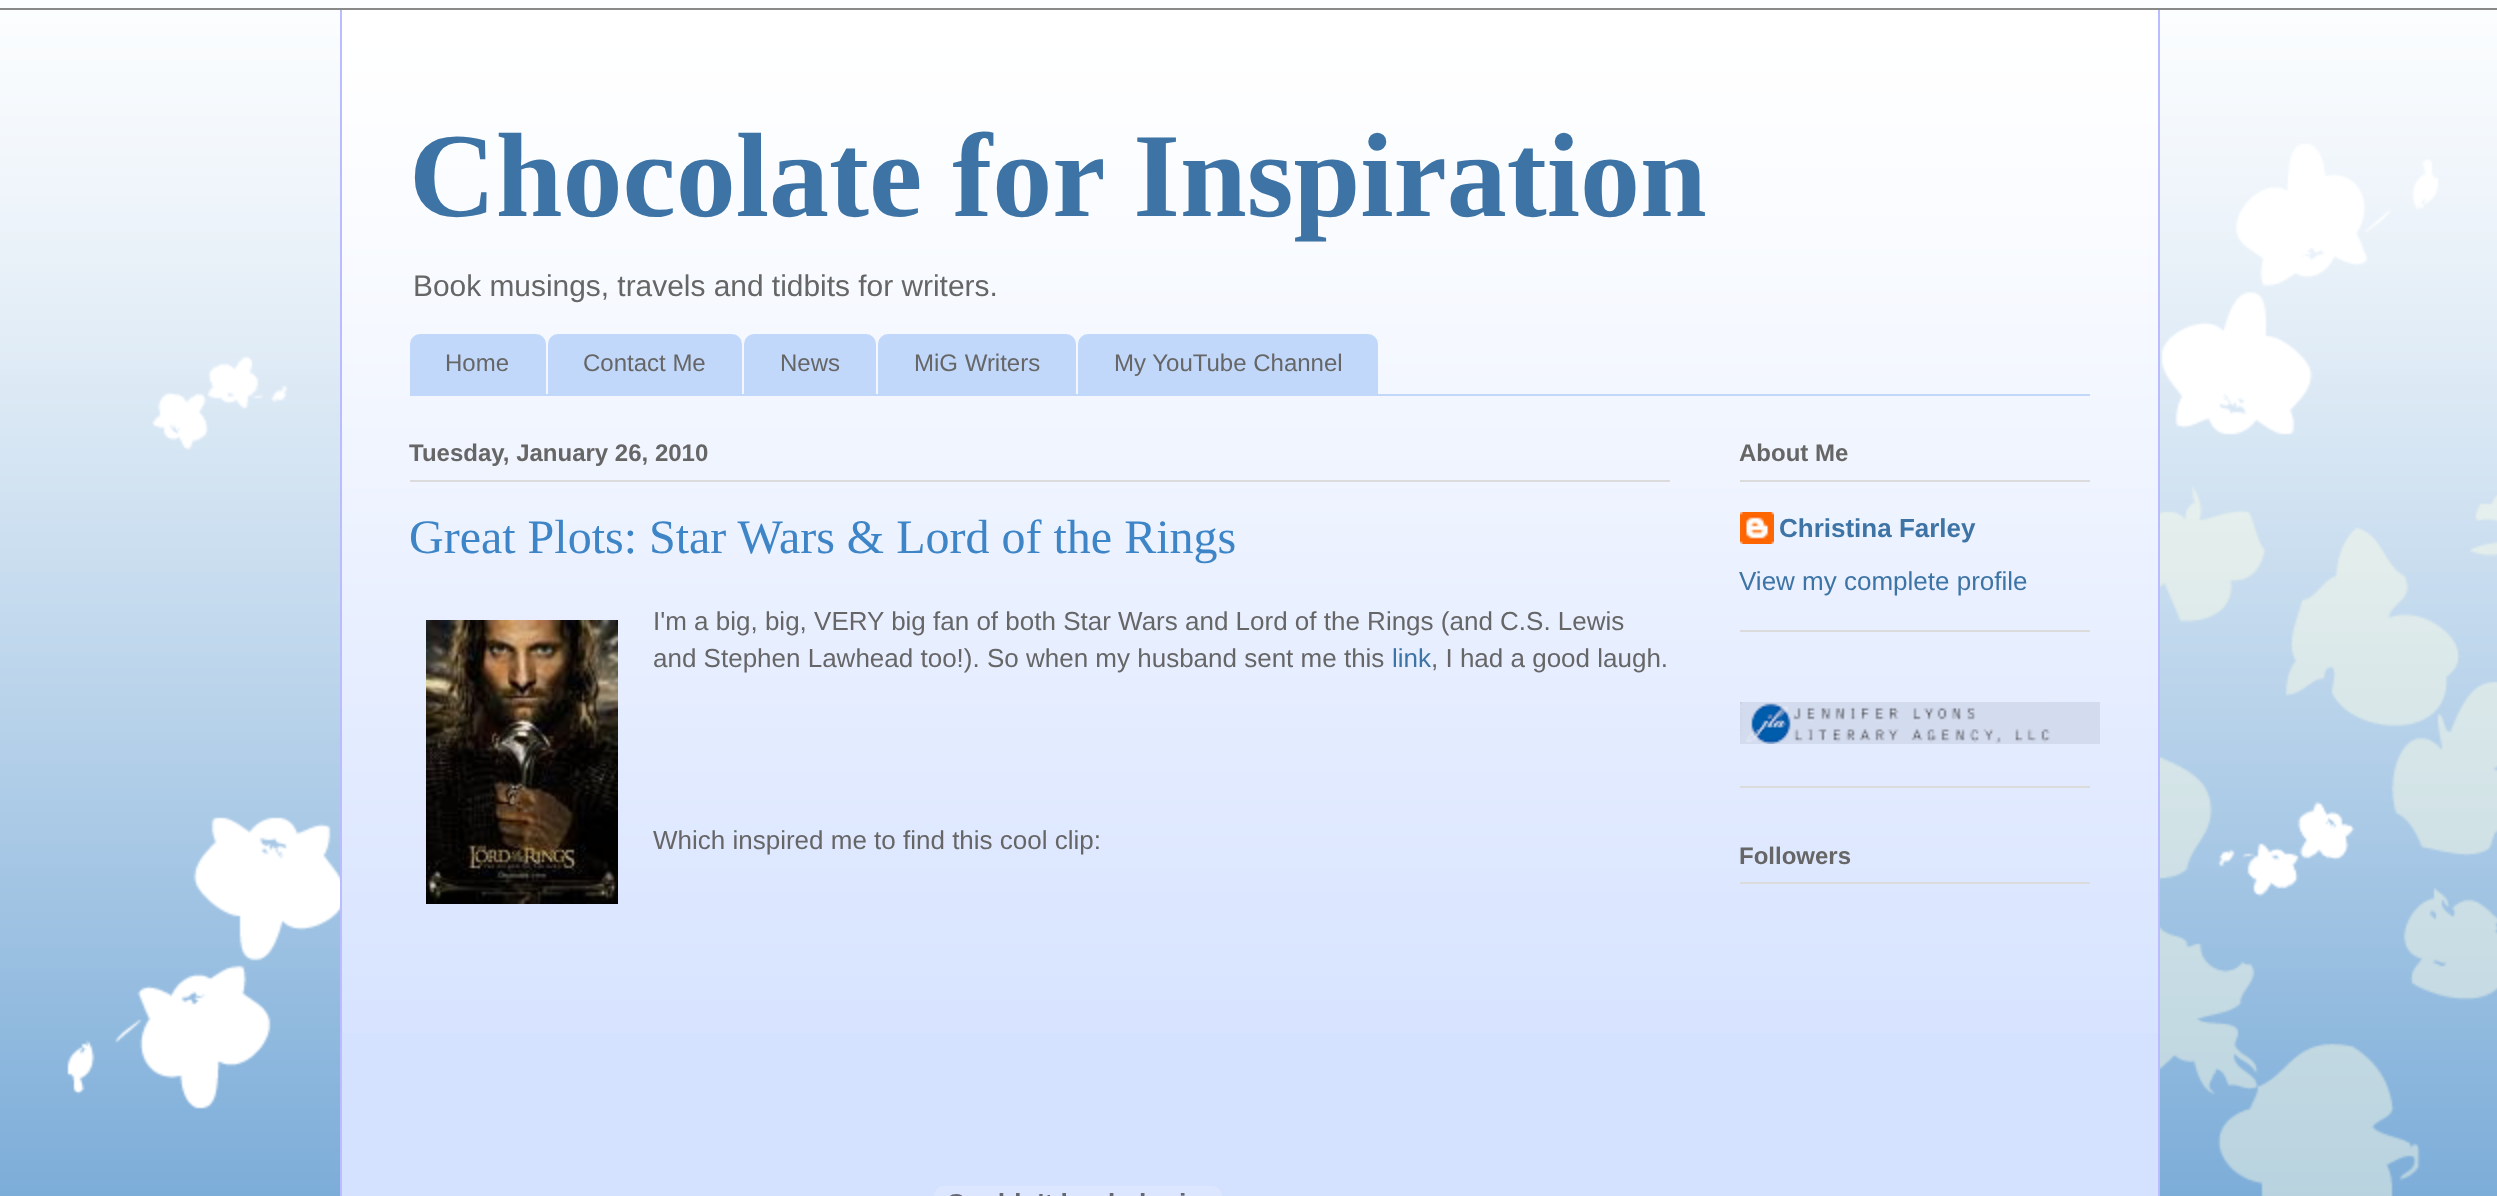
async function draw(canvas) {
	canvas.width = 2497;
	canvas.height = 1196;
	const c = canvas.getContext('2d');
	c.miterLimit = 4;
	c.fontKerning = 'normal';
	async function loadImage(src) {
		const img = new Image();
		img.src = src;
		await img.decode();
		return img;
	}

	c.fillStyle = '#3d85c6';
	c.fillRect(0, 0, 2497, 1196);
	c.drawImage(await loadImage('img1.png'), 0, 0, 2497, 1196);
	c.fillStyle = '#888';
	c.fillRect(0, 8, 2497, 2);
	c.fillStyle = '#d4e1ff';
	c.fillRect(342, 23, 1816, 1173);
	c.drawImage(await loadImage('img2.png'), 342, 10, 1816, 1023);
	c.fillStyle = '#bbf';
	c.fillRect(2158, 10, 2, 1186);
	c.fillRect(340, 10, 2, 1186);
	c.font = 'bold 120px Liberation Serif';
	c.fillStyle = '#3d74a5';
	c.fillText('Chocolate for Inspiration', 409, 216);
	c.font = '29.9px Liberation Sans';
	c.fillStyle = '#666';
	c.fillText('Book musings, travels and tidbits for writers.', 413, 296);
	c.fillStyle = '#c2d8fa';
	c.fillRect(410, 394, 1680, 2);
	c.beginPath();
	c.roundRect(410, 334, 136, 60, [10, 10, 0, 0]);
	c.fill();
	c.font = '24px Liberation Sans';
	c.fillStyle = '#666';
	c.fillText('Home', 445, 371);
	c.fillStyle = '#c2d8fa';
	c.beginPath();
	c.roundRect(548, 334, 194, 60, [10, 10, 0, 0]);
	c.fill();
	c.fillStyle = '#666';
	c.fillText('Contact Me', 583, 371);
	c.fillStyle = '#c2d8fa';
	c.beginPath();
	c.roundRect(744, 334, 132, 60, [10, 10, 0, 0]);
	c.fill();
	c.fillStyle = '#666';
	c.fillText('News', 780, 371);
	c.fillStyle = '#c2d8fa';
	c.beginPath();
	c.roundRect(878, 334, 198, 60, [10, 10, 0, 0]);
	c.fill();
	c.fillStyle = '#666';
	c.fillText('MiG Writers', 914, 371);
	c.fillStyle = '#c2d8fa';
	c.beginPath();
	c.roundRect(1078, 334, 300, 60, [10, 10, 0, 0]);
	c.fill();
	c.fillStyle = '#666';
	c.fillText('My YouTube Channel', 1114, 371);
	c.fillStyle = '#dbdbdb';
	c.fillRect(410, 480, 1260, 2);
	c.font = 'bold 24px Liberation Sans';
	c.fillStyle = '#666';
	c.fillText('Tuesday, January 26, 2010', 409, 461);
	c.font = '48px Liberation Serif';
	c.fillStyle = '#3d85c6';
	c.fillText('Great Plots: Star Wars & Lord of the Rings', 409, 553);
	c.drawImage(await loadImage('img3.png'), 426, 620, 192, 284);
	c.font = '26px Liberation Sans';
	c.fillStyle = '#666';
	c.fillText('I\'m a big, big, VERY big fan of both Star Wars and Lord of the Rings (and C.S. Lewis', 653, 630);
	c.fillText('and Stephen Lawhead too!). So when my husband sent me this', 653, 667);
	c.fillStyle = '#3d74a5';
	c.fillText('link', 1392, 667);
	c.fillStyle = '#666';
	c.fillText(', I had a good laugh.', 1431, 667);
	c.fillText('Which inspired me to find this cool clip:', 653, 849);
	c.drawImage(await loadImage('img4.png'), 934, 1186, 288, 10);
	c.fillStyle = '#dbdbdb';
	c.fillRect(1740, 630, 350, 2);
	c.fillRect(1740, 480, 350, 2);
	c.font = 'bold 24px Liberation Sans';
	c.fillStyle = '#666';
	c.fillText('About Me', 1739, 461);
	c.drawImage(await loadImage('img5.png'), 1740, 512, 34, 32);
	c.font = 'bold 26px Liberation Sans';
	c.fillStyle = '#3d74a5';
	c.fillText('Christina Farley', 1779, 537);
	c.font = '26px Liberation Sans';
	c.fillText('View my complete profile', 1739, 590);
	c.fillStyle = '#dbdbdb';
	c.fillRect(1740, 786, 350, 2);
	c.drawImage(await loadImage('img6.png'), 1740, 702, 360, 42);
	c.fillRect(1740, 882, 350, 2);
	c.font = 'bold 24px Liberation Sans';
	c.fillStyle = '#666';
	c.fillText('Followers', 1739, 864);
}

draw(document.querySelector('canvas'));
